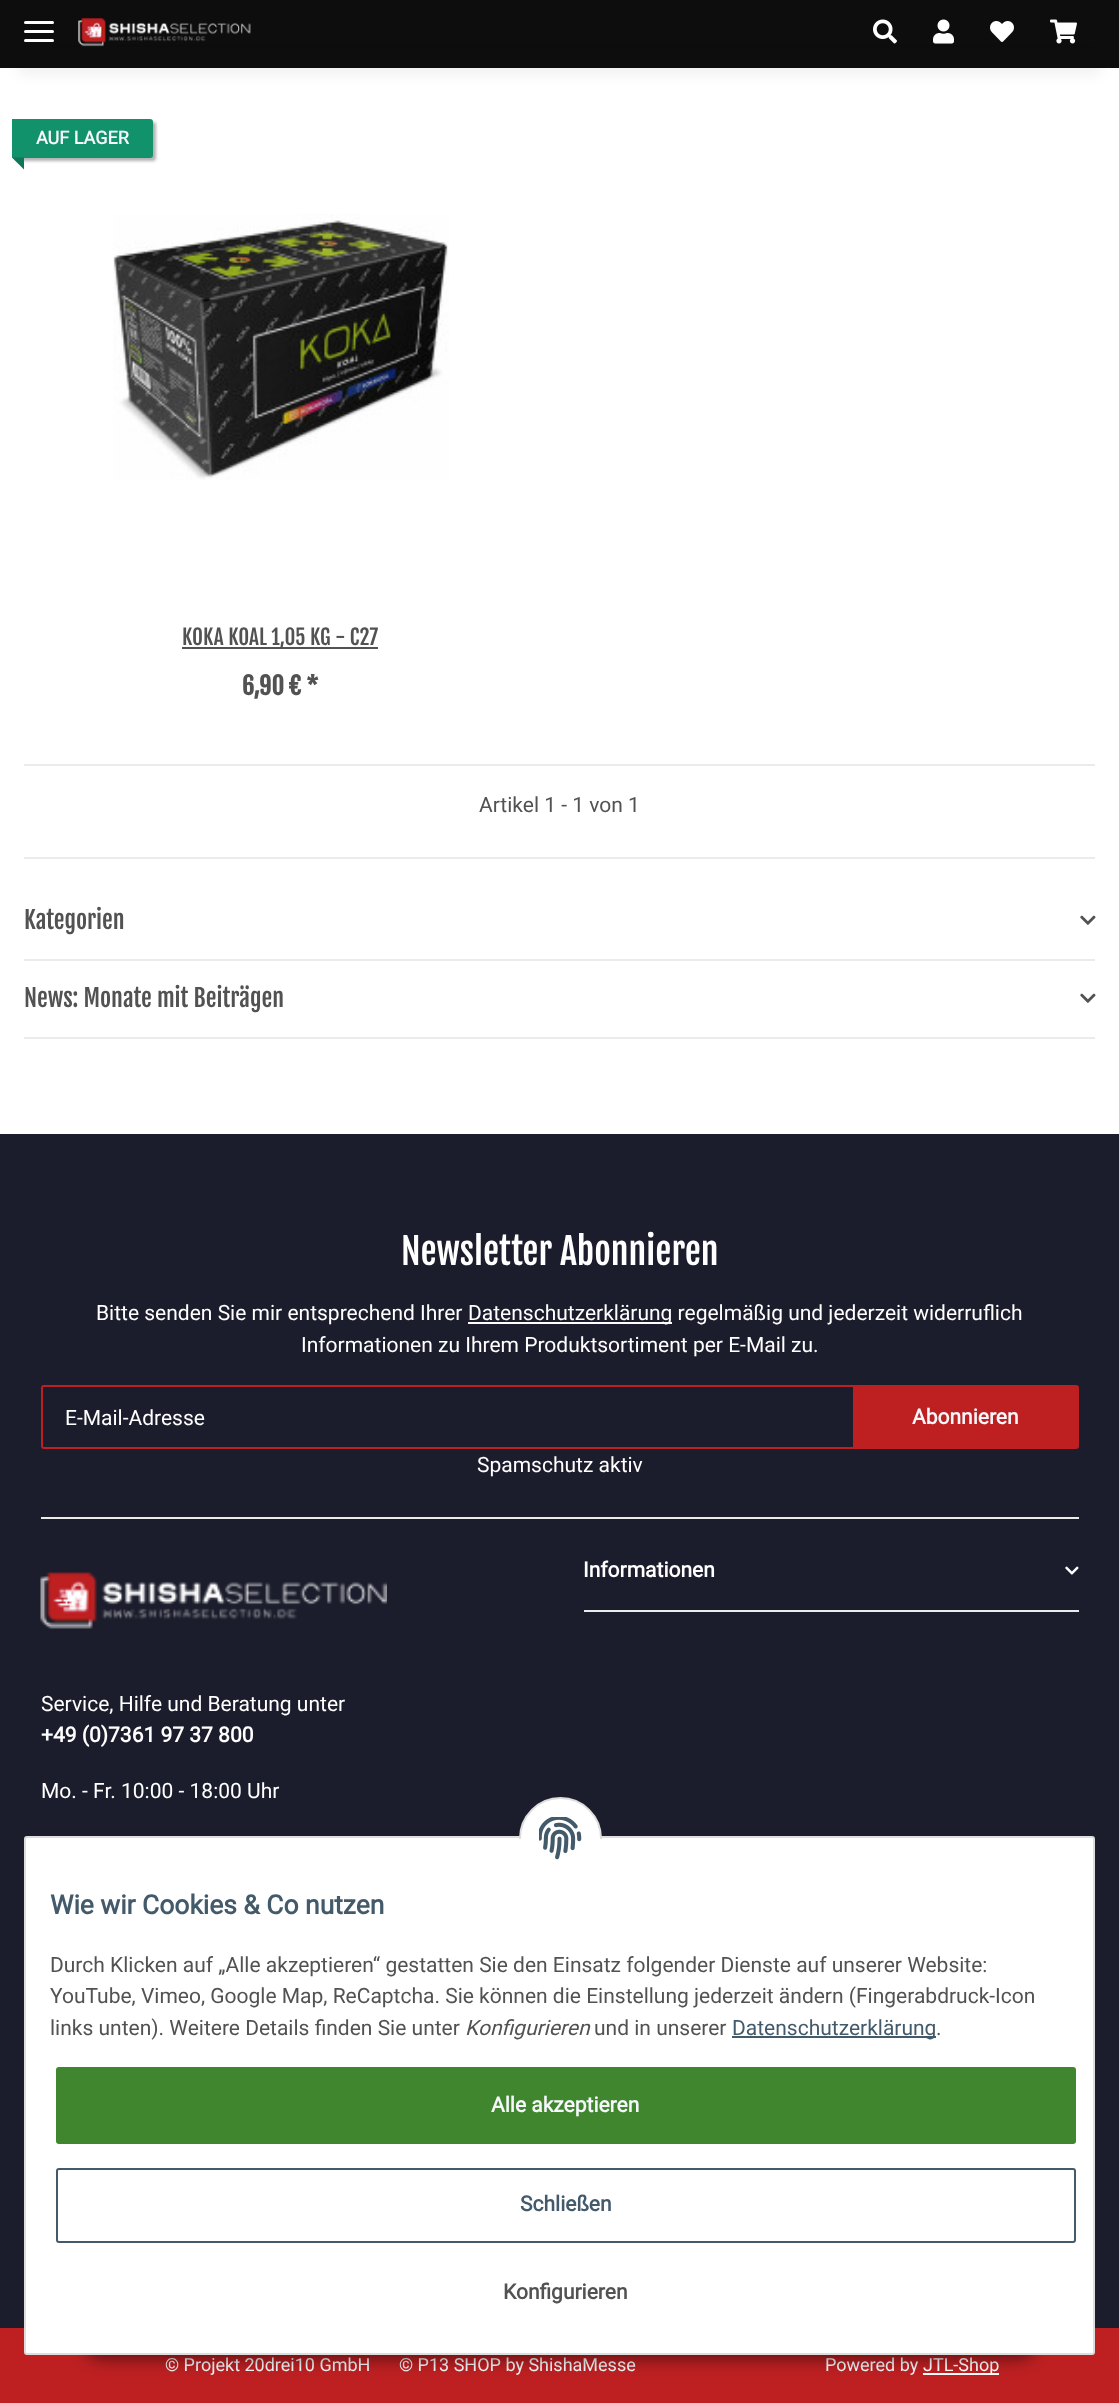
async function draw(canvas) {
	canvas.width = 1119;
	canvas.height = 2403;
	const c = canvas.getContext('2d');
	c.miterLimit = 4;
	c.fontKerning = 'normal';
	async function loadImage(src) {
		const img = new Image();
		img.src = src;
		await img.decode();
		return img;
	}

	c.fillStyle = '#fff';
	c.fillRect(0, 0, 1119, 2403);
	c.fillStyle = '#ebebeb';
	c.fillRect(24, 45, 1071, 2);
	c.save();
	c.beginPath();
	c.moveTo(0, 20);
	c.lineTo(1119, 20);
	c.lineTo(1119, 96);
	c.lineTo(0, 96);
	c.closePath();
	c.moveTo(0, 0);
	c.lineTo(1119, 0);
	c.lineTo(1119, 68);
	c.lineTo(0, 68);
	c.closePath();
	c.clip('evenodd');
	c.fillStyle = '#0000000f';
	c.filter = 'blur(7px)';
	c.beginPath();
	c.rect(18, 42, 1083, 32);
	c.fill();
	c.filter = 'none';
	c.restore();
	c.fillStyle = '#000000f2';
	c.fillRect(0, 0, 1119, 68);
	c.fillStyle = '#fff';
	c.beginPath();
	c.roundRect(24, 30, 30, 3, 1.5);
	c.fill();
	c.beginPath();
	c.roundRect(24, 21, 30, 3, 1.5);
	c.fill();
	c.beginPath();
	c.roundRect(24, 39, 30, 3, 1.5);
	c.fill();
	c.drawImage(await loadImage('img1.png'), 78, 18, 173, 29);
	c.drawImage(await loadImage('img2.png'), 873, 19, 24, 25);
	c.drawImage(await loadImage('img3.png'), 933, 19, 21, 25);
	c.drawImage(await loadImage('img4.png'), 990, 21, 24, 21);
	c.drawImage(await loadImage('img5.png'), 1050, 19, 27, 25);
	c.fillStyle = '#0000004d';
	c.filter = 'blur(1.5px)';
	c.beginPath();
	c.roundRect(15, 122, 141, 39, 3);
	c.fill();
	c.filter = 'none';
	c.fillStyle = '#11926b';
	c.beginPath();
	c.roundRect(12, 119, 141, 39, [0, 3, 3, 0]);
	c.fill();
	c.font = 'bold 18px Roboto';
	c.fillStyle = '#f5f7fa';
	c.fillText('AUF LAGER', 36, 144);
	c.fillStyle = '#0e7757';
	c.beginPath();
	c.moveTo(24, 157.5);
	c.lineTo(24, 169.5);
	c.lineTo(12, 157.5);
	c.closePath();
	c.fill();
	c.drawImage(await loadImage('img6.png'), 113, 214, 336, 266);
	c.fillStyle = '#525252';
	c.fillRect(182, 647, 196, 2);
	c.font = '21px Fjalla One';
	c.fillText('KOKA KOAL 1,05 KG - C27', 182, 645);
	c.font = 'bold 24px Fjalla One';
	c.fillText('6,90 € *', 242, 695);
	c.fillStyle = '#ebebeb';
	c.fillRect(24, 764, 1071, 2);
	c.font = '21px Roboto';
	c.fillStyle = '#525252';
	c.fillText('Artikel 1 - 1 von 1', 479, 812);
	c.fillStyle = '#ebebeb';
	c.fillRect(24, 857, 1071, 2);
	c.font = '24px Fjalla One';
	c.fillStyle = '#525252';
	c.fillText('Kategorien', 24, 929);
	c.drawImage(await loadImage('img7.png'), 1080, 915, 16, 10);
	c.fillStyle = '#ebebeb';
	c.fillRect(24, 959, 1071, 2);
	c.fillStyle = '#525252';
	c.fillText('News: Monate mit Beiträgen', 24, 1007);
	c.drawImage(await loadImage('img7.png'), 1080, 993, 16, 10);
	c.fillStyle = '#ebebeb';
	c.fillRect(24, 1037, 1071, 2);
	c.fillStyle = '#1c1d2c';
	c.fillRect(0, 1134, 1119, 1194);
	c.font = '36px Fjalla One';
	c.fillStyle = '#fff';
	c.fillText('Newsletter Abonnieren', 401, 1265);
	c.font = '21px Roboto';
	c.fillText('Bitte senden Sie mir entsprechend Ihrer', 96, 1320);
	c.fillRect(468, 1322, 204, 2);
	c.fillText('Datenschutzerklärung regelmäßig und jederzeit widerruflich', 468, 1320);
	c.fillText('Informationen zu Ihrem Produktsortiment per E-Mail zu.', 301, 1352);
	c.beginPath();
	c.roundRect(42, 1386, 812, 62, [2, 0, 0, 2]);
	c.strokeStyle = '#be2022';
	c.lineWidth = 2;
	c.stroke();
	c.fillText('E-Mail-Adresse', 65, 1425);
	c.fillStyle = '#be2022';
	c.beginPath();
	c.roundRect(855, 1386, 223, 62, [0, 2, 2, 0]);
	c.fill();
	c.stroke();
	c.font = 'bold 21px Roboto';
	c.fillStyle = '#f5f7fa';
	c.fillText('Abonnieren', 912, 1424);
	c.font = '21px Roboto';
	c.fillStyle = '#fff';
	c.fillText('Spamschutz aktiv', 477, 1472);
	c.fillStyle = '#ebebeb';
	c.fillRect(41, 1517, 1038, 2);
	c.font = 'bold 21px Roboto';
	c.fillStyle = '#fff';
	c.fillText('Informationen', 583, 1577);
	c.drawImage(await loadImage('img8.png'), 1065, 1566, 14, 9);
	c.fillStyle = '#ebebeb';
	c.fillRect(584, 1610, 495, 2);
	c.drawImage(await loadImage('img9.png'), 40, 1572, 347, 57);
	c.font = '21px Roboto';
	c.fillStyle = '#fff';
	c.fillText('Service, Hilfe und Beratung unter', 41, 1711);
	c.font = 'bold 21px Roboto';
	c.fillText('+49 (0)7361 97 37 800', 41, 1742);
	c.font = '21px Roboto';
	c.fillText('Mo. - Fr. 10:00 - 18:00 Uhr', 41, 1798);
	c.fillStyle = '#be2022';
	c.fillRect(0, 2328, 1119, 75);
	c.font = '18px Roboto';
	c.fillStyle = '#f5f7fa';
	for (const [text, x, y] of [
		['© Projekt 20drei10 GmbH', 165, 2371],
		['© P13 SHOP by ShishaMesse', 399, 2371],
		['Powered by', 825, 2371],
	]) {
		c.fillText(text, x, y);
	}
	c.fillStyle = '#fff';
	c.fillRect(923, 2373, 76, 2);
	c.fillText('JTL-Shop', 923, 2371);
	c.fillStyle = '#00000073';
	c.filter = 'blur(7.5px)';
	c.beginPath();
	c.roundRect(80, 2312, 960, 48, 24);
	c.fill();
	c.filter = 'none';
	c.fillStyle = '#fff';
	c.beginPath();
	c.roundRect(25, 1837, 1069, 517, 2);
	c.fill();
	c.strokeStyle = '#ddd';
	c.stroke();
	c.beginPath();
	c.arc(560.5, 1838.5, 40.5, 0, 2 * Math.PI);
	c.fill();
	c.stroke();
	c.fillRect(519, 1839, 83, 41);
	c.drawImage(await loadImage('img10.png'), 539, 1817, 43, 43);
	c.font = 'bold 26.4px Roboto';
	c.fillStyle = '#435a6b';
	c.fillText('Wie wir Cookies & Co nutzen', 50, 1914);
	c.font = '21px Roboto';
	c.fillStyle = '#525252';
	for (const [text, x, y] of [
		['Durch Klicken auf „Alle akzeptieren“ gestatten Sie den Einsatz folgender Dienste auf unserer Website:', 50, 1972],
		['YouTube, Vimeo, Google Map, ReCaptcha. Sie können die Einstellung jederzeit ändern (Fingerabdruck-Icon', 50, 2003],
		['links unten). Weitere Details finden Sie unter', 50, 2035],
	]) {
		c.fillText(text, x, y);
	}
	c.font = 'italic 21px Roboto';
	c.fillText('Konfigurieren', 465, 2035);
	c.font = '21px Roboto';
	c.fillText('und in unserer', 594, 2035);
	c.fillStyle = '#435a6b';
	c.fillRect(732, 2036, 204, 2);
	c.fillText('Datenschutzerklärung', 732, 2035);
	c.fillStyle = '#525252';
	c.fillText('.', 936, 2035);
	c.fillStyle = '#3f862f';
	c.beginPath();
	c.roundRect(57, 2068, 1018, 75, 2);
	c.fill();
	c.strokeStyle = '#3f862f';
	c.stroke();
	c.font = 'bold 21px Roboto';
	c.fillStyle = '#f5f7fa';
	c.fillText('Alle akzeptieren', 491, 2112);
	c.beginPath();
	c.roundRect(57, 2169, 1018, 73, 2);
	c.strokeStyle = '#435a6b';
	c.stroke();
	c.fillStyle = '#435a6b';
	c.fillText('Schließen', 520, 2211);
	c.fillStyle = '#525252';
	c.fillText('Konfigurieren', 503, 2299);
}

draw(document.querySelector('canvas'));
